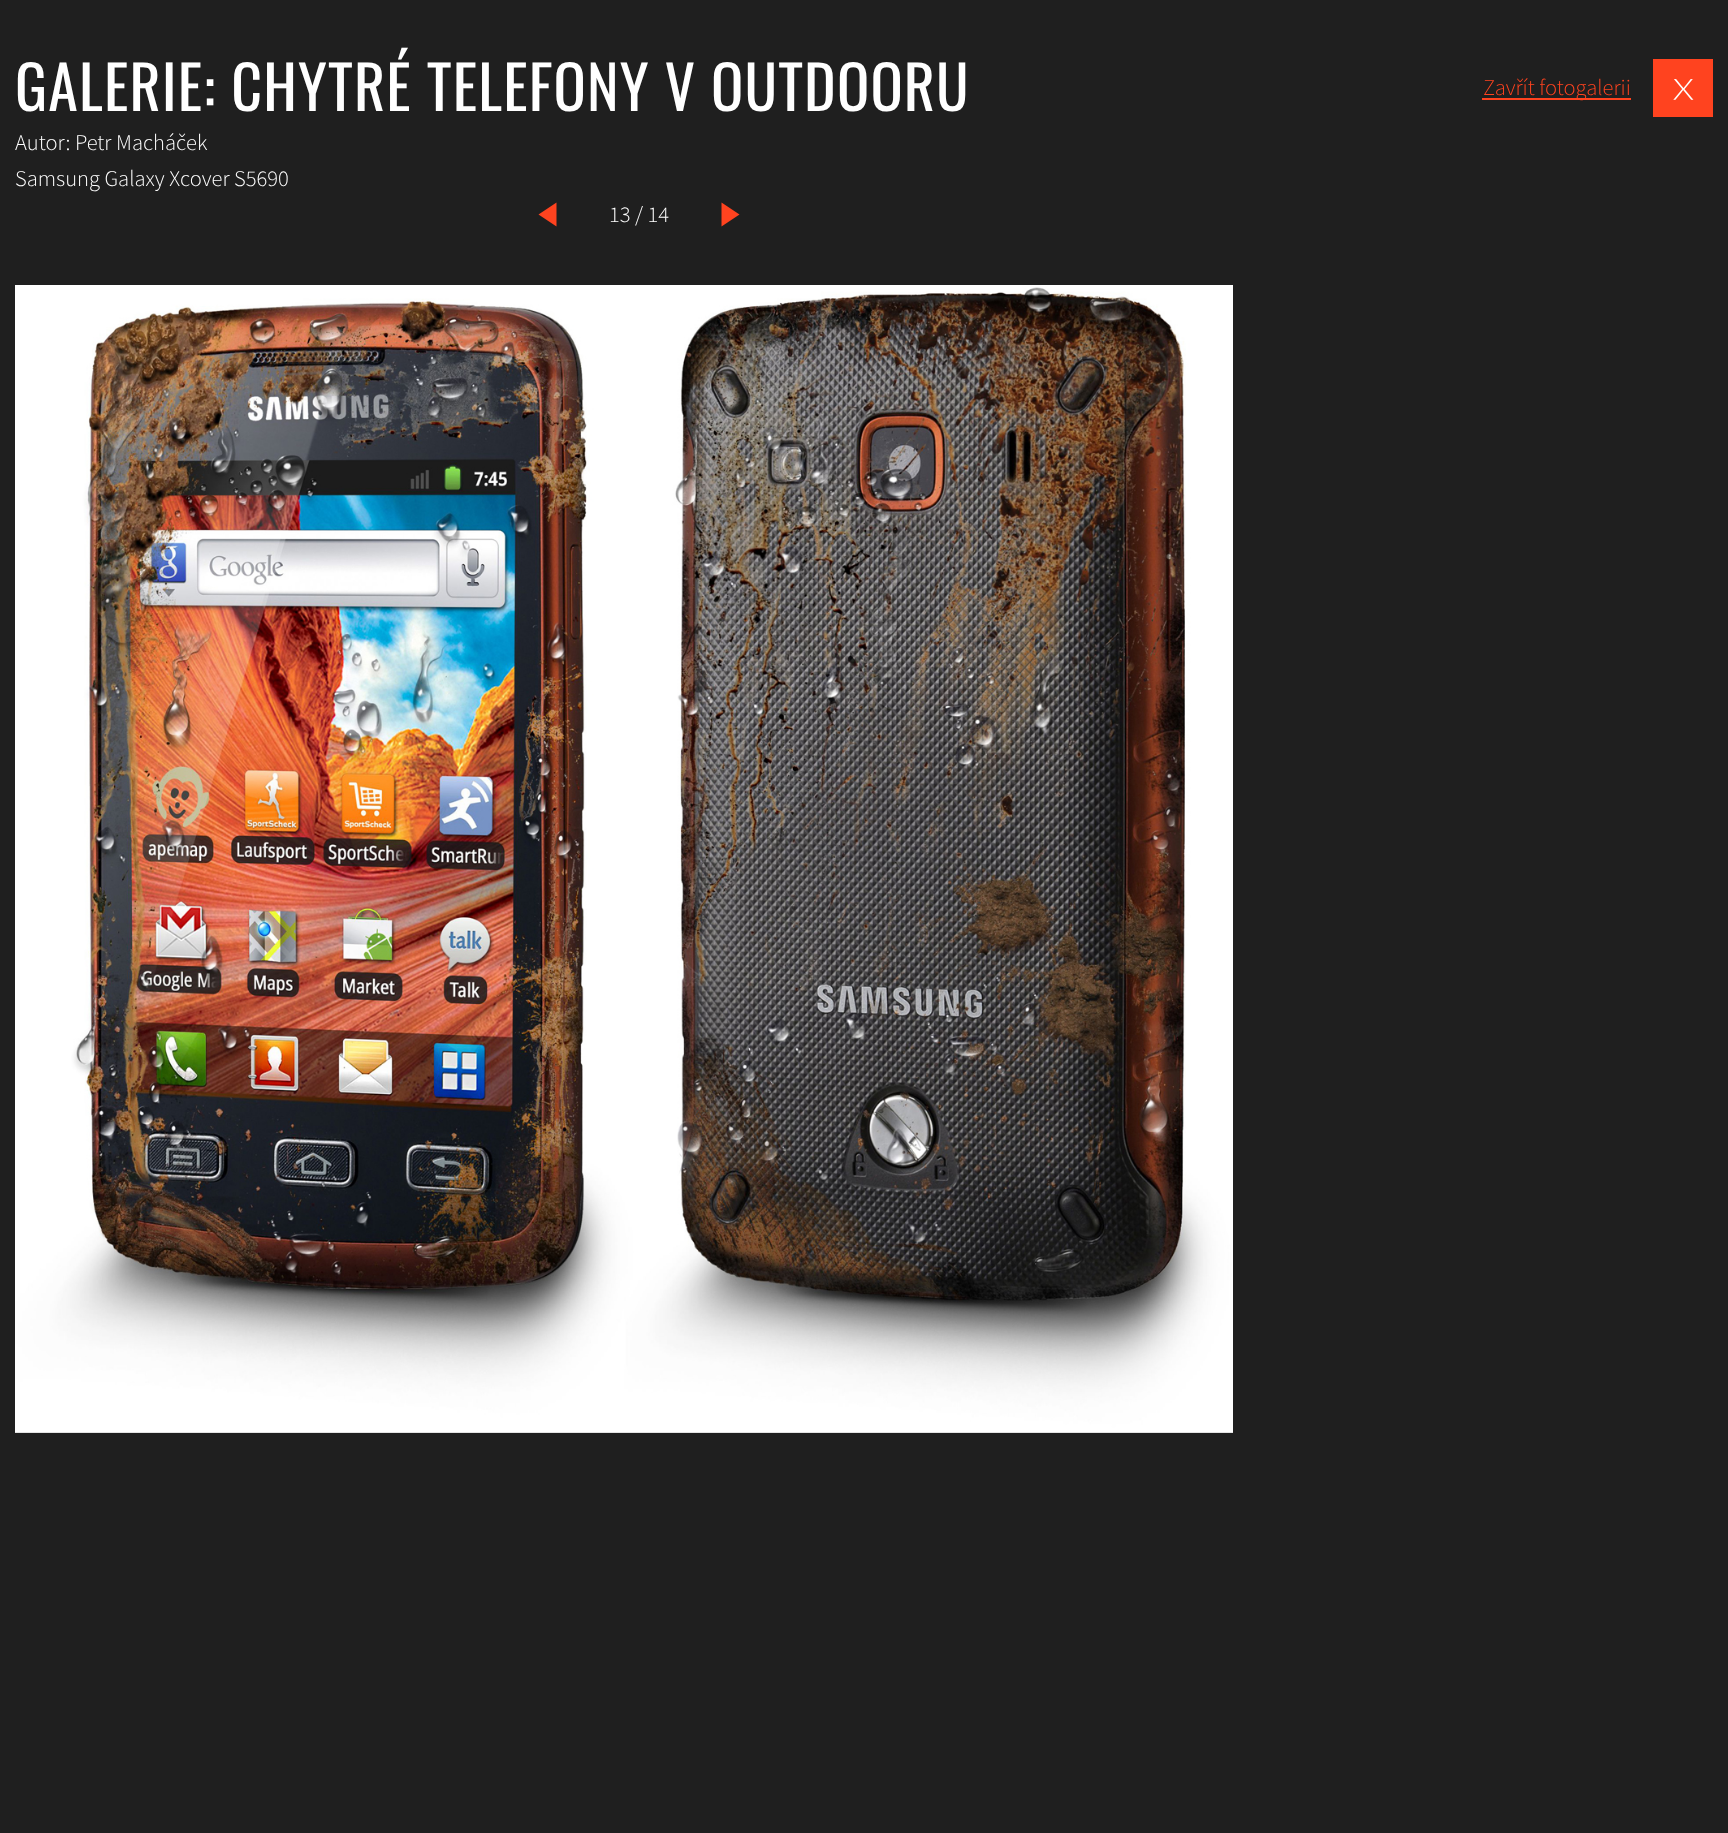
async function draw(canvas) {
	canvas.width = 1728;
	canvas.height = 1833;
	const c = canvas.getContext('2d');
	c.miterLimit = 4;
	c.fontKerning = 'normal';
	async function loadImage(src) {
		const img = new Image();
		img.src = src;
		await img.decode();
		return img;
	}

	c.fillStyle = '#1f1f1f';
	c.fillRect(0, 0, 1728, 1833);
	c.letterSpacing = '1.15px';
	c.font = '60px Oswald';
	c.fillStyle = '#fff';
	c.fillText('GALERIE: CHYTRÉ TELEFONY V OUTDOORU', 15, 111);
	c.letterSpacing = '0px';
	c.font = '300 22.5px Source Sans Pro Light';
	c.fillText('Autor: Petr Macháček', 15, 150);
	c.fillText('Samsung Galaxy Xcover S5690', 15, 186);
	c.fillStyle = '#ff431f';
	c.beginPath();
	c.moveTo(556.5, 202.5);
	c.lineTo(556.5, 226.5);
	c.lineTo(538.5, 214.5);
	c.closePath();
	c.fill();
	c.fillStyle = '#fff';
	c.fillText('13 / 14', 609, 222);
	c.fillStyle = '#ff431f';
	c.beginPath();
	c.moveTo(721.5, 226.5);
	c.lineTo(721.5, 202.5);
	c.lineTo(739.5, 214.5);
	c.closePath();
	c.fill();
	c.fillRect(1482, 98, 149, 2);
	c.fillText('Zavřít fotogalerii', 1483, 95);
	c.fillRect(1653, 59, 60, 58);
	c.drawImage(await loadImage('img1.png'), 1673, 79, 21, 21);
	c.fillStyle = '#dadada';
	c.fillRect(15, 1432, 1218, 1);
	c.drawImage(await loadImage('img2.png'), 15, 285, 1218, 1148);
}

draw(document.querySelector('canvas'));
